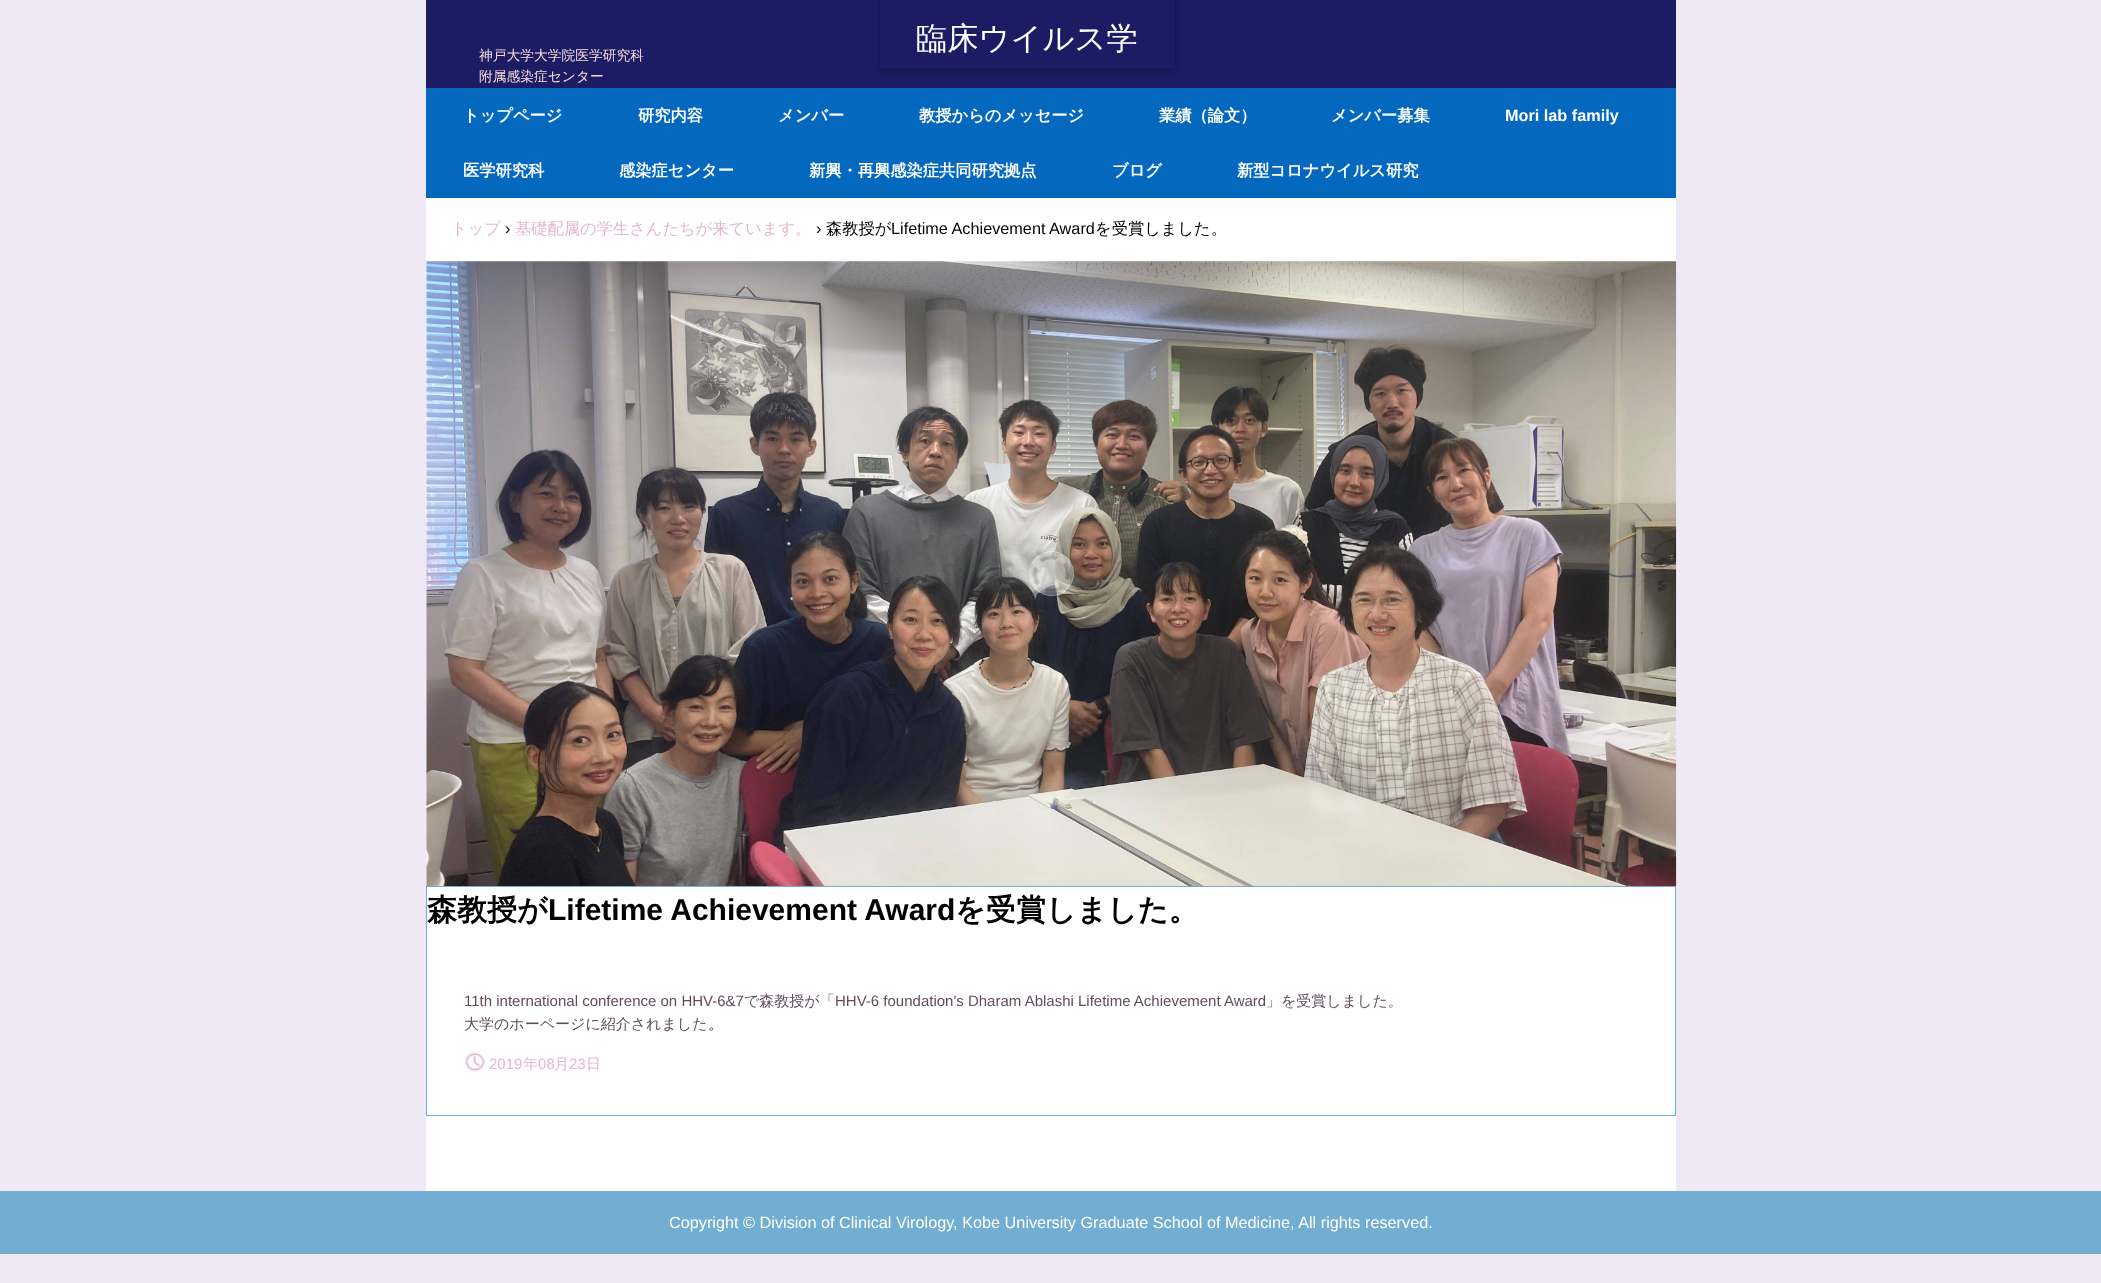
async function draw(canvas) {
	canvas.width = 2101;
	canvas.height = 1283;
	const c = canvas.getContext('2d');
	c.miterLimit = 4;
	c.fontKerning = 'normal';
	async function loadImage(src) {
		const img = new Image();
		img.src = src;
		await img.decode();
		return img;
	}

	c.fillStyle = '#eee9f4';
	c.fillRect(0, 0, 2101, 1283);
	c.fillStyle = '#1c1c64';
	c.fillRect(426, 0, 1250, 88);
	c.fillStyle = '#00000033';
	c.filter = 'blur(2px)';
	c.beginPath();
	c.rect(879, -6, 297, 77);
	c.fill();
	c.filter = 'none';
	c.fillStyle = '#1c1c64';
	c.fillRect(880, 0, 295, 68);
	c.font = '500 31.25px WenQuanYi Zen Hei';
	c.fillStyle = '#fff';
	c.fillText('臨床ウイルス学', 916, 49);
	c.font = '500 13.75px WenQuanYi Zen Hei';
	c.fillStyle = '#f8dcda';
	c.fillText('神戸大学大学院医学研究科', 479, 60);
	c.fillText('附属感染症センター', 479, 81);
	c.fillStyle = '#fff';
	c.fillRect(426, 198, 1250, 993);
	c.fillStyle = '#0468bf';
	c.fillRect(426, 88, 1250, 110);
	c.font = 'bold 16.25px WenQuanYi Zen Hei';
	c.fillStyle = '#fff';
	for (const [text, x, y] of [
		['トップページ', 463, 121],
		['研究内容', 638, 121],
		['メンバー', 778, 121],
		['教授からのメッセージ', 919, 121],
		['業績（論文）', 1159, 121],
		['メンバー募集', 1331, 121],
	]) {
		c.fillText(text, x, y);
	}
	c.font = 'bold 16.25px Liberation Sans';
	c.fillText('Mori lab family', 1505, 121);
	c.font = 'bold 16.25px WenQuanYi Zen Hei';
	for (const [text, x, y] of [
		['医学研究科', 463, 176],
		['感染症センター', 619, 176],
		['新興・再興感染症共同研究拠点', 809, 176],
		['ブログ', 1112, 176],
		['新型コロナウイルス研究', 1237, 176],
	]) {
		c.fillText(text, x, y);
	}
	c.font = '500 16.25px WenQuanYi Zen Hei';
	c.fillStyle = '#e3b7cf';
	c.fillText('トップ', 451, 234);
	c.font = '16.25px Liberation Sans';
	c.fillStyle = '#000';
	c.fillText('›', 505, 234);
	c.font = '500 16.25px WenQuanYi Zen Hei';
	c.fillStyle = '#e3b7cf';
	c.fillText('基礎配属の学生さんたちが来ています。', 515, 234);
	c.font = '16.25px Liberation Sans';
	c.fillStyle = '#000';
	c.fillText('›', 816, 234);
	c.font = '500 16.25px WenQuanYi Zen Hei';
	c.fillText('森教授が', 826, 234);
	c.font = '16.25px Liberation Sans';
	c.fillText('Lifetime Achievement Award', 891, 234);
	c.font = '500 16.25px WenQuanYi Zen Hei';
	c.fillText('を受賞しました。', 1095, 234);
	c.drawImage(await loadImage('img1.png'), 426, 261, 1251, 625);
	c.fillStyle = '#ffffff3d';
	c.beginPath();
	c.arc(1051.5, 573.5, 22.5, 0, 2 * Math.PI);
	c.fill();
	c.drawImage(await loadImage('img2.png'), 1032, 555, 38, 38);
	c.beginPath();
	c.arc(1051.5, 573.5, 22, 0, 2 * Math.PI);
	c.strokeStyle = '#ffffff42';
	c.stroke();
	c.strokeStyle = '#72aed1';
	c.strokeRect(426.5, 886.5, 1249, 229);
	c.font = 'bold 30px WenQuanYi Zen Hei';
	c.fillStyle = '#000';
	c.fillText('森教授が', 427, 920);
	c.font = 'bold 30px Liberation Sans';
	c.fillText('Lifetime Achievement Award', 548, 920);
	c.font = 'bold 30px WenQuanYi Zen Hei';
	c.fillText('を受賞しました。', 955, 920);
	c.font = '15px Liberation Sans';
	c.fillStyle = '#614c5c';
	c.fillText('11th international conference on HHV-6&7', 464, 1006);
	c.font = '500 15px WenQuanYi Zen Hei';
	c.fillText('で森教授が「', 744, 1006);
	c.font = '15px Liberation Sans';
	c.fillText('HHV-6 foundation\'s Dharam Ablashi Lifetime Achievement Award', 835, 1006);
	c.font = '500 15px WenQuanYi Zen Hei';
	c.fillText('」を受賞しました。', 1266, 1006);
	c.fillText('大学のホーページに紹介されました', 464, 1029);
	c.fillStyle = '#000';
	c.fillText('。', 708, 1029);
	c.drawImage(await loadImage('img3.png'), 465, 1052, 20, 20);
	c.font = '15px Liberation Sans';
	c.fillStyle = '#e3b7cf';
	c.fillText('2019', 489, 1069);
	c.font = '500 15px WenQuanYi Zen Hei';
	c.fillText('年', 523, 1069);
	c.font = '15px Liberation Sans';
	c.fillText('08', 538, 1069);
	c.font = '500 15px WenQuanYi Zen Hei';
	c.fillText('月', 554, 1069);
	c.font = '15px Liberation Sans';
	c.fillText('23', 569, 1069);
	c.font = '500 15px WenQuanYi Zen Hei';
	c.fillText('日', 586, 1069);
	c.fillStyle = '#72aed1';
	c.fillRect(0, 1191, 2101, 63);
	c.font = '16.25px Liberation Sans';
	c.fillStyle = '#fff';
	c.fillText('Copyright © Division of Clinical Virology, Kobe University Graduate School of Medicine, All rights reserved.', 669, 1228);
}

draw(document.querySelector('canvas'));
